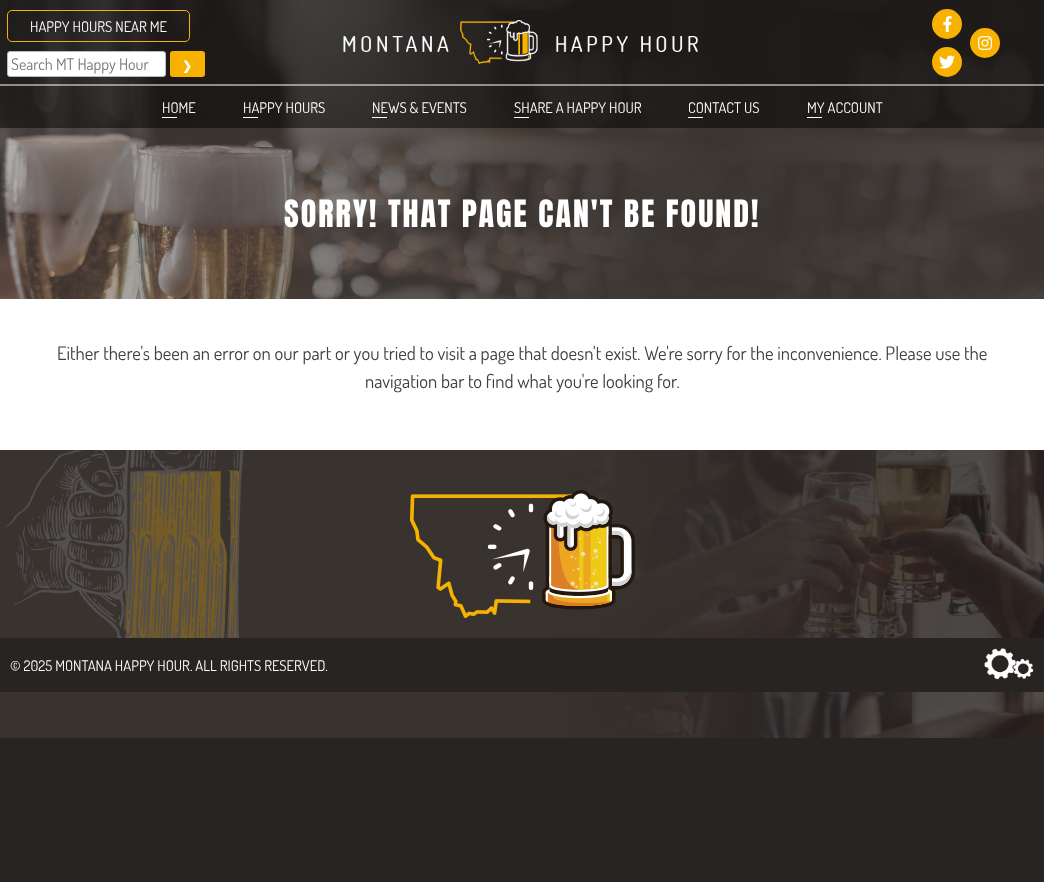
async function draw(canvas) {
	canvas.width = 1044;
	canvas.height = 882;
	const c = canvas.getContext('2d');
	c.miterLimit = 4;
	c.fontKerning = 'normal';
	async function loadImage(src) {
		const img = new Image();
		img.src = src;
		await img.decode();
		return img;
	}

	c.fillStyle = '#282422';
	c.fillRect(0, 0, 1044, 882);
	c.drawImage(await loadImage('img1.png'), 0, 0, 1044, 299);
	c.fillStyle = '#00000080';
	c.fillRect(0, 0, 1044, 128);
	c.beginPath();
	c.roundRect(7.5, 10.5, 182, 31, 4.5);
	c.strokeStyle = '#f7b200';
	c.stroke();
	c.font = '14.7px Dosis';
	c.fillStyle = '#fff';
	c.fillText('HAPPY HOURS NEAR ME', 30, 32);
	c.drawImage(await loadImage('img2.png'), 343, 20, 355, 44);
	c.fillStyle = '#f7b200';
	c.beginPath();
	c.arc(947, 24, 15, 0, 2 * Math.PI);
	c.fill();
	c.drawImage(await loadImage('img3.png'), 943, 16, 9, 16);
	c.beginPath();
	c.arc(985, 43, 15, 0, 2 * Math.PI);
	c.fill();
	c.drawImage(await loadImage('img4.png'), 978, 36, 14, 14);
	c.beginPath();
	c.arc(947, 62, 15, 0, 2 * Math.PI);
	c.fill();
	c.drawImage(await loadImage('img5.png'), 939, 55, 16, 14);
	c.fillStyle = '#fff';
	c.beginPath();
	c.roundRect(7.5, 51.5, 158, 25, 2.5);
	c.fill();
	c.strokeStyle = '#bbb';
	c.stroke();
	c.font = '16px Dosis';
	c.fillStyle = '#757575';
	c.fillText('Search MT Happy Hour', 11, 70);
	c.fillStyle = '#f7b200';
	c.beginPath();
	c.roundRect(170, 51, 35, 26, 3);
	c.fill();
	c.font = 'bold 12px DejaVu Sans';
	c.fillStyle = '#fff';
	c.fillText('❯', 182, 70);
	c.fillStyle = '#ffffff80';
	c.fillRect(0, 84, 1044, 2);
	c.font = '14.7px Dosis';
	c.fillStyle = '#fff';
	c.fillText('HOME', 162, 113);
	c.fillRect(162, 117, 15, 1);
	c.fillText('HAPPY HOURS', 243, 113);
	c.fillRect(243, 117, 15, 1);
	c.fillText('NEWS & EVENTS', 372, 113);
	c.fillRect(372, 117, 15, 1);
	c.fillText('SHARE A HAPPY HOUR', 514, 113);
	c.fillRect(514, 117, 15, 1);
	c.fillText('CONTACT US', 688, 113);
	c.fillRect(688, 117, 15, 1);
	c.fillText('MY ACCOUNT', 807, 113);
	c.fillRect(807, 117, 15, 1);
	c.letterSpacing = '2px';
	c.font = '32px Anton';
	c.fillText('SORRY! THAT PAGE CAN\'T BE FOUND!', 284, 227);
	c.fillRect(0, 299, 1044, 151);
	c.letterSpacing = '0px';
	c.font = '18.65px Dosis';
	c.fillStyle = '#404040';
	c.fillText('Either there\'s been an error on our part or you tried to visit a page that doesn\'t exist. We\'re sorry for the inconvenience. Please use the', 57, 360);
	c.fillText('navigation bar to find what you\'re looking for.', 365, 388);
	c.drawImage(await loadImage('img8.png'), 0, 450, 1044, 288);
	c.drawImage(await loadImage('img6.png'), 410, 490, 225, 128);
	c.fillStyle = '#282422';
	c.fillRect(0, 638, 1044, 54);
	c.font = '14.7px Dosis';
	c.fillStyle = '#fff';
	c.fillText('© 2025 MONTANA HAPPY HOUR. ALL RIGHTS RESERVED.', 10, 671);
	c.drawImage(await loadImage('img7.png'), 984, 648, 50, 32);
}

draw(document.querySelector('canvas'));
